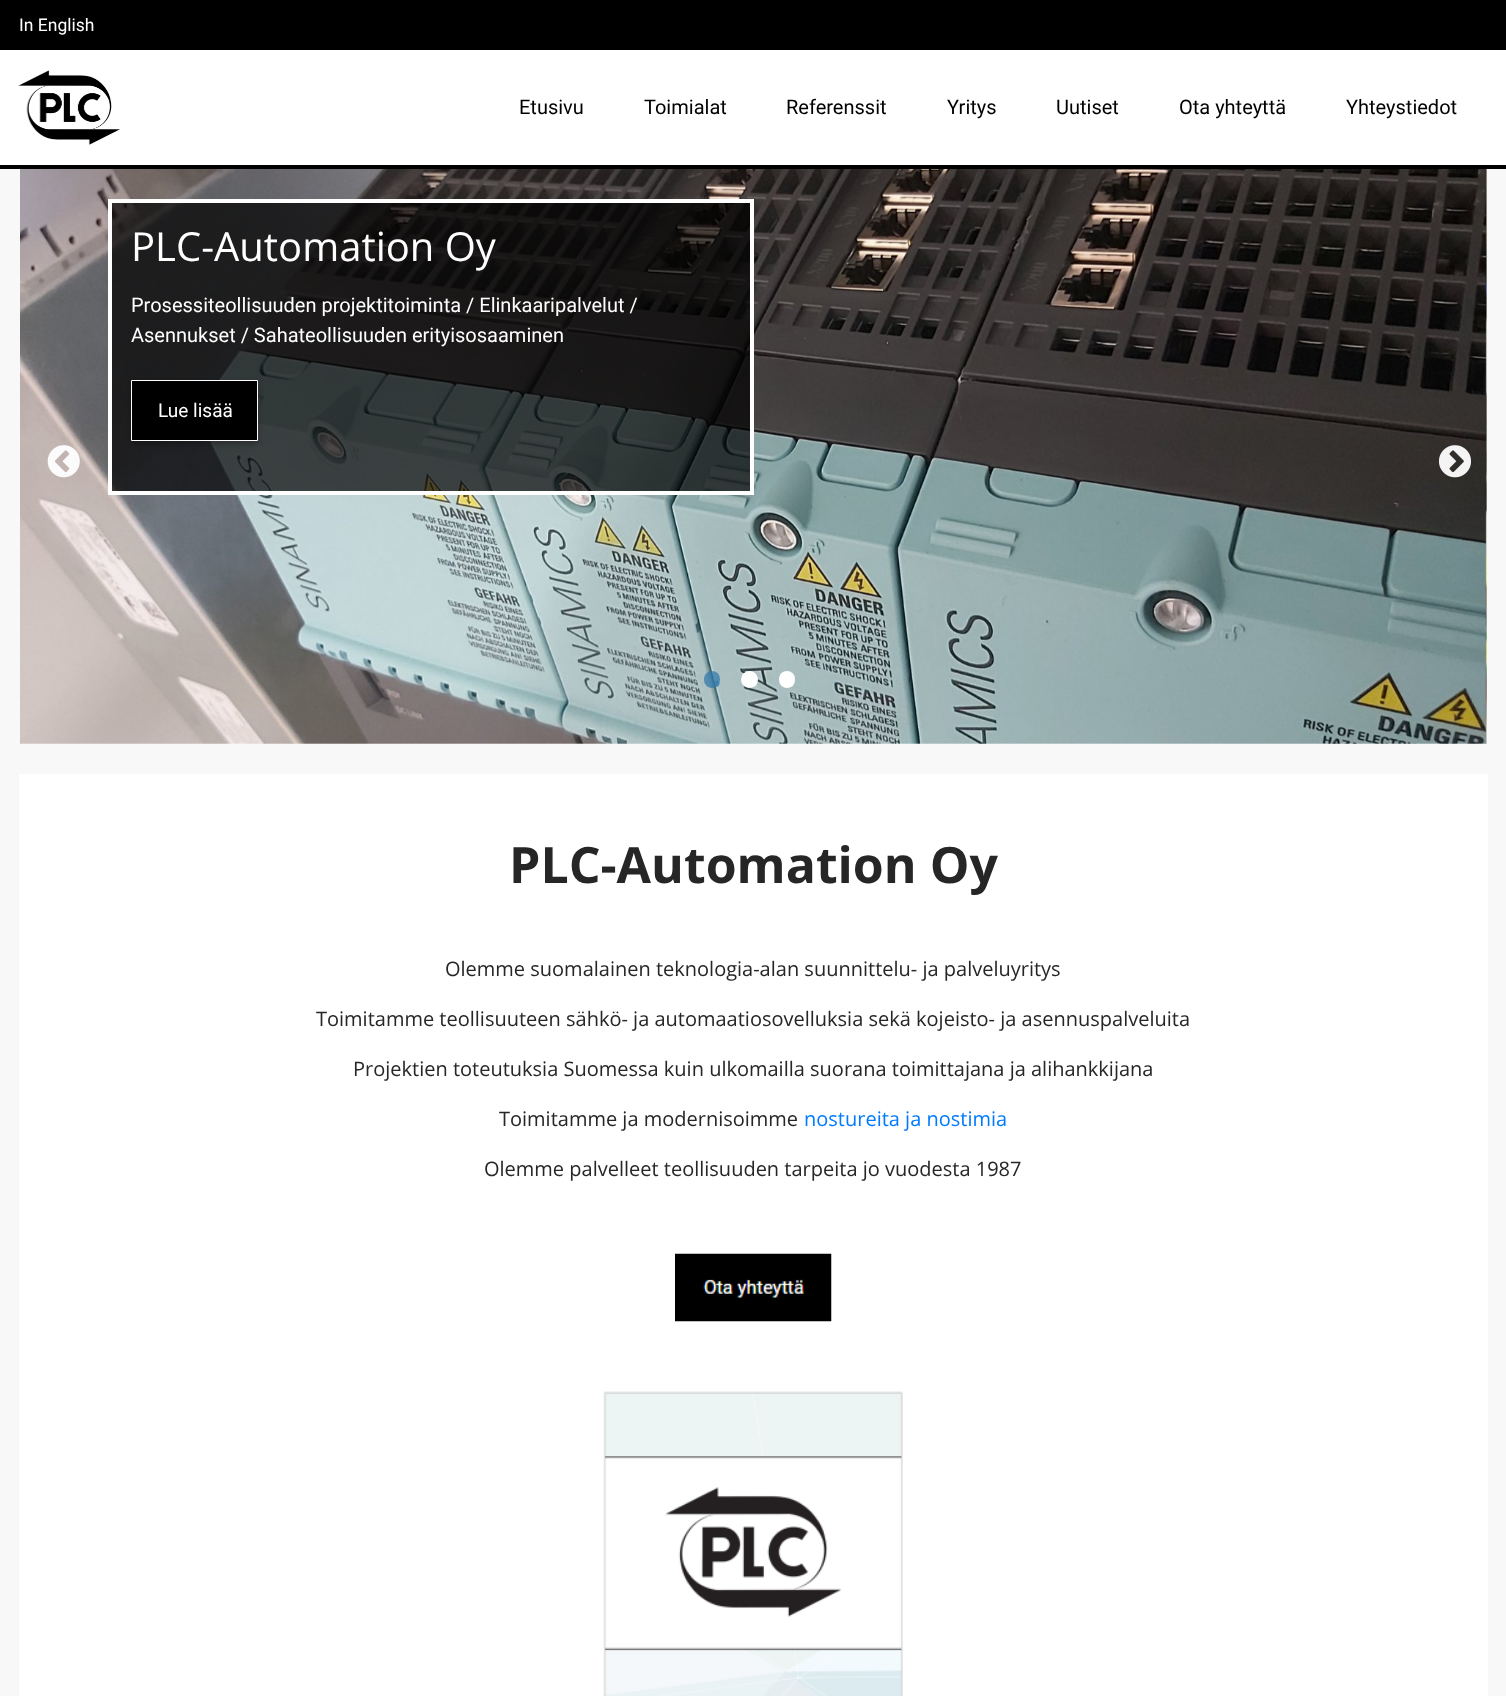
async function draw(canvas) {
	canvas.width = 1506;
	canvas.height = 1696;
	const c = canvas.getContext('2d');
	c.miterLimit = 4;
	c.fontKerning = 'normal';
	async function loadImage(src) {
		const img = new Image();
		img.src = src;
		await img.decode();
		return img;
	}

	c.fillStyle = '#f8f8f8';
	c.fillRect(0, 0, 1506, 1696);
	for (const [x, y, w, h, color] of [
		[0, 50, 1506, 115, '#fff'],
		[0, 165, 1506, 4, '#000'],
		[0, 0, 1506, 50, '#000'],
	]) {
		c.fillStyle = color;
		c.fillRect(x, y, w, h);
	}
	c.font = '17.5px Roboto';
	c.fillStyle = '#fff';
	c.fillText('In English', 19, 31);
	c.drawImage(await loadImage('img1.png'), 18, 70, 102, 75);
	c.font = '20px Roboto';
	c.fillStyle = '#000';
	for (const [text, x, y] of [
		['Etusivu', 519, 114],
		['Toimialat', 644, 114],
		['Referenssit', 786, 114],
		['Yritys', 947, 114],
		['Uutiset', 1056, 114],
		['Ota yhteyttä', 1179, 114],
		['Yhteystiedot', 1346, 114],
	]) {
		c.fillText(text, x, y);
	}
	c.drawImage(await loadImage('img4.png'), 20, 743, 1, 1);
	c.drawImage(await loadImage('img2.png'), 20, 169, 1467, 575);
	c.fillStyle = '#000000b3';
	c.beginPath();
	c.rect(110, 201, 642, 292);
	c.fill();
	c.strokeStyle = '#fff';
	c.lineWidth = 4;
	c.stroke();
	c.font = '40px Open Sans';
	c.fillStyle = '#fff';
	c.fillText('PLC-Automation Oy', 131, 261);
	c.font = '20px Roboto';
	c.fillText('Prosessiteollisuuden projektitoiminta / Elinkaaripalvelut /', 131, 312);
	c.fillText('Asennukset / Sahateollisuuden erityisosaaminen', 131, 342);
	c.fillStyle = '#00000040';
	c.filter = 'blur(2.5px)';
	c.beginPath();
	c.rect(131, 383, 127, 61);
	c.fill();
	c.filter = 'none';
	c.fillStyle = '#000';
	c.beginPath();
	c.rect(131.5, 380.5, 126, 60);
	c.fill();
	c.lineWidth = 1;
	c.stroke();
	c.font = '19px Roboto';
	c.fillStyle = '#fff';
	c.fillText('Lue lisää', 158, 417);
	c.drawImage(await loadImage('img3.png'), 1485, 169, 2, 575);
	c.drawImage(await loadImage('img5.png'), 47, 445, 33, 33);
	c.drawImage(await loadImage('img6.png'), 1438, 445, 33, 33);
	c.fillStyle = '#3479a9bf';
	c.beginPath();
	c.roundRect(704, 671, 16, 17, 8);
	c.fill();
	c.drawImage(await loadImage('img7.png'), 713, 680, 7, 7);
	c.fillStyle = '#fff';
	c.beginPath();
	c.arc(749.5, 679.5, 8.5, 0, 2 * Math.PI);
	c.fill();
	c.fillStyle = '#ffffff40';
	c.fillRect(754, 684, 3, 3);
	c.fillStyle = '#fff';
	c.beginPath();
	c.roundRect(779, 671, 16, 17, 8);
	c.fill();
	c.drawImage(await loadImage('img8.png'), 791, 683, 4, 4);
	c.fillRect(19, 774, 1469, 922);
	c.font = 'bold 50px Open Sans';
	c.fillStyle = '#262626';
	c.fillText('PLC-Automation Oy', 509, 883);
	c.font = '20px Open Sans';
	for (const [text, x, y] of [
		['Olemme suomalainen teknologia-alan suunnittelu- ja palveluyritys', 445, 976],
		['Toimitamme teollisuuteen sähkö- ja automaatiosovelluksia sekä kojeisto- ja asennuspalveluita', 316, 1026],
		['Projektien toteutuksia Suomessa kuin ulkomailla suorana toimittajana ja alihankkijana', 353, 1076],
		['Toimitamme ja modernisoimme', 499, 1126],
	]) {
		c.fillText(text, x, y);
	}
	c.fillStyle = '#007bff';
	c.fillText('nostureita ja nostimia', 804, 1126);
	c.fillStyle = '#262626';
	c.fillText('Olemme palvelleet teollisuuden tarpeita jo vuodesta 1987', 484, 1176);
	c.drawImage(await loadImage('img9.png'), 675, 1253, 157, 69);
	c.drawImage(await loadImage('img10.png'), 603, 1391, 300, 305);
}

draw(document.querySelector('canvas'));
